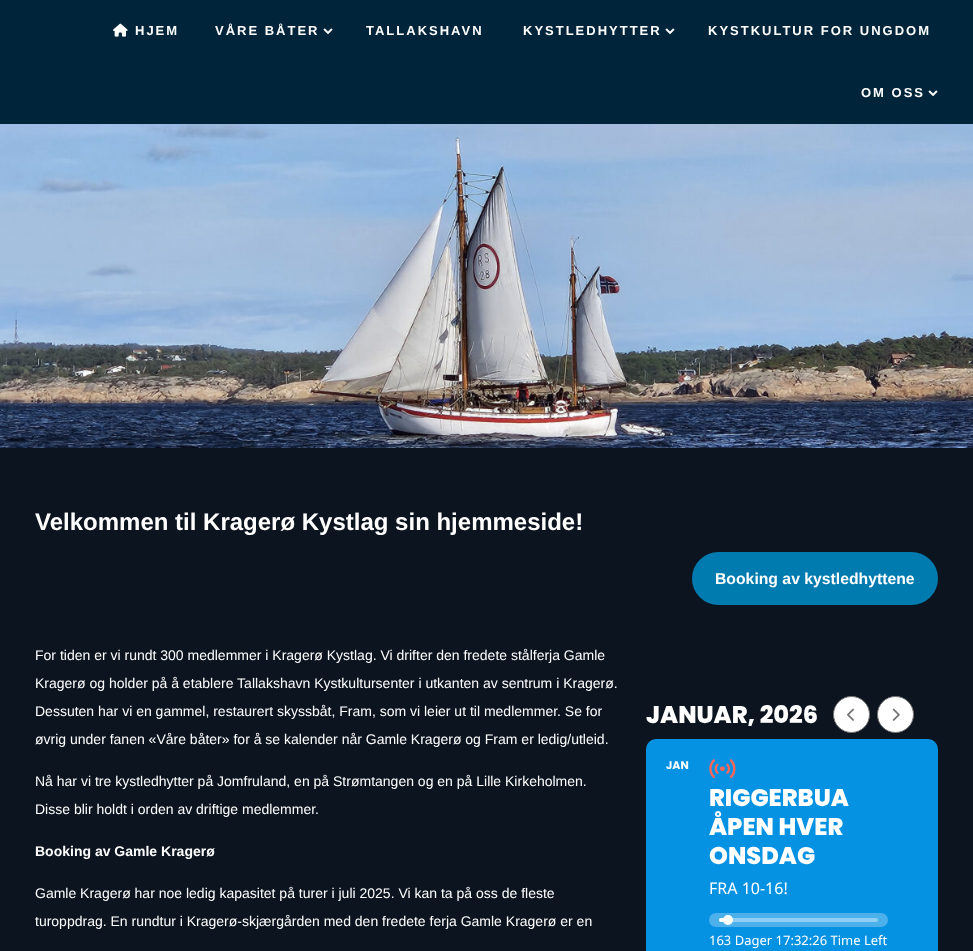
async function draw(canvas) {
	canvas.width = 973;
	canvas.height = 951;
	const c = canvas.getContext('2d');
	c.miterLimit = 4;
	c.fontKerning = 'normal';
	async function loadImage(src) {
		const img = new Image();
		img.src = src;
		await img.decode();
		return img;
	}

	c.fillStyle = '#0b141f';
	c.fillRect(0, 0, 973, 951);
	c.fillStyle = '#00243a';
	c.fillRect(0, 0, 973, 124);
	c.drawImage(await loadImage('img1.png'), 113, 23, 15, 14);
	c.letterSpacing = '2px';
	c.font = 'bold 13px Liberation Sans';
	c.fillStyle = '#fff';
	c.fillText('HJEM', 135, 35);
	c.fillText('VÅRE BÅTER', 215, 35);
	c.drawImage(await loadImage('img2.png'), 323, 28, 10, 7);
	c.fillText('TALLAKSHAVN', 366, 35);
	c.fillText('KYSTLEDHYTTER', 523, 35);
	c.drawImage(await loadImage('img2.png'), 665, 28, 10, 7);
	c.fillText('KYSTKULTUR FOR UNGDOM', 708, 35);
	c.fillText('OM OSS', 861, 97);
	c.drawImage(await loadImage('img2.png'), 928, 90, 10, 7);
	c.drawImage(await loadImage('img3.png'), 0, 124, 973, 324);
	c.letterSpacing = '0px';
	c.font = 'bold 24px Liberation Sans';
	c.fillText('Velkommen til Kragerø Kystlag sin hjemmeside!', 35, 530);
	c.fillStyle = '#007baf';
	c.beginPath();
	c.roundRect(692, 552, 246, 53, 26.5);
	c.fill();
	c.font = 'bold 15.75px Liberation Sans';
	c.fillStyle = '#fff';
	c.fillText('Booking av kystledhyttene', 715, 584);
	c.font = '14px Liberation Sans';
	for (const [text, x, y] of [
		['For tiden er vi rundt 300 medlemmer i Kragerø Kystlag. Vi drifter den fredete stålferja Gamle', 35, 660],
		['Kragerø og holder på å etablere Tallakshavn Kystkultursenter i utkanten av sentrum i Kragerø.', 35, 688],
		['Dessuten har vi en gammel, restaurert skyssbåt, Fram, som vi leier ut til medlemmer. Se for', 35, 716],
		['øvrig under fanen «Våre båter» for å se kalender når Gamle Kragerø og Fram er ledig/utleid.', 35, 744],
		['Nå har vi tre kystledhytter på Jomfruland, en på Strømtangen og en på Lille Kirkeholmen.', 35, 786],
		['Disse blir holdt i orden av driftige medlemmer.', 35, 814],
	]) {
		c.fillText(text, x, y);
	}
	c.font = 'bold 14px Liberation Sans';
	c.fillText('Booking av Gamle Kragerø', 35, 856);
	c.font = '14px Liberation Sans';
	c.fillText('Gamle Kragerø har noe ledig kapasitet på turer i juli 2025. Vi kan ta på oss de fleste', 35, 898);
	c.fillText('turoppdrag. En rundtur i Kragerø-skjærgården med den fredete ferja Gamle Kragerø er en', 35, 926);
	c.font = '800 24px Poppins';
	c.fillText('JANUAR, 2026', 646, 723);
	c.beginPath();
	c.arc(851.5, 714.5, 18, 0, 2 * Math.PI);
	c.fill();
	c.strokeStyle = '#737373';
	c.stroke();
	c.drawImage(await loadImage('img4.png'), 847, 708, 7, 13);
	c.beginPath();
	c.arc(895.5, 714.5, 18, 0, 2 * Math.PI);
	c.fill();
	c.stroke();
	c.drawImage(await loadImage('img5.png'), 892, 708, 8, 13);
	c.fillStyle = '#0692e3';
	c.beginPath();
	c.roundRect(646, 739, 292, 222, 10);
	c.fill();
	c.font = 'bold 11px Poppins';
	c.fillStyle = '#fff';
	c.fillText('JAN', 666, 769);
	c.drawImage(await loadImage('img6.png'), 709, 759, 27, 20);
	c.font = '800 24px Poppins';
	for (const [text, x, y] of [
		['RIGGERBUA', 709, 806],
		['ÅPEN HVER', 709, 835],
		['ONSDAG', 709, 864],
	]) {
		c.fillText(text, x, y);
	}
	c.font = '16px Noto Sans';
	c.fillText('FRA 10-16!', 709, 894);
	c.fillStyle = '#4cb1eb';
	c.beginPath();
	c.roundRect(709, 913, 179, 14, 7);
	c.fill();
	c.fillStyle = '#90cff3';
	c.beginPath();
	c.roundRect(719, 918, 159, 4, 2);
	c.fill();
	c.fillStyle = '#fff';
	c.beginPath();
	c.roundRect(719, 918, 14, 4, 2);
	c.fill();
	c.beginPath();
	c.arc(728, 920, 5, 0, 2 * Math.PI);
	c.fill();
	c.font = '13px Noto Sans';
	c.fillText('163 Dager 17:32:26 Time Left', 709, 945);
}

draw(document.querySelector('canvas'));
